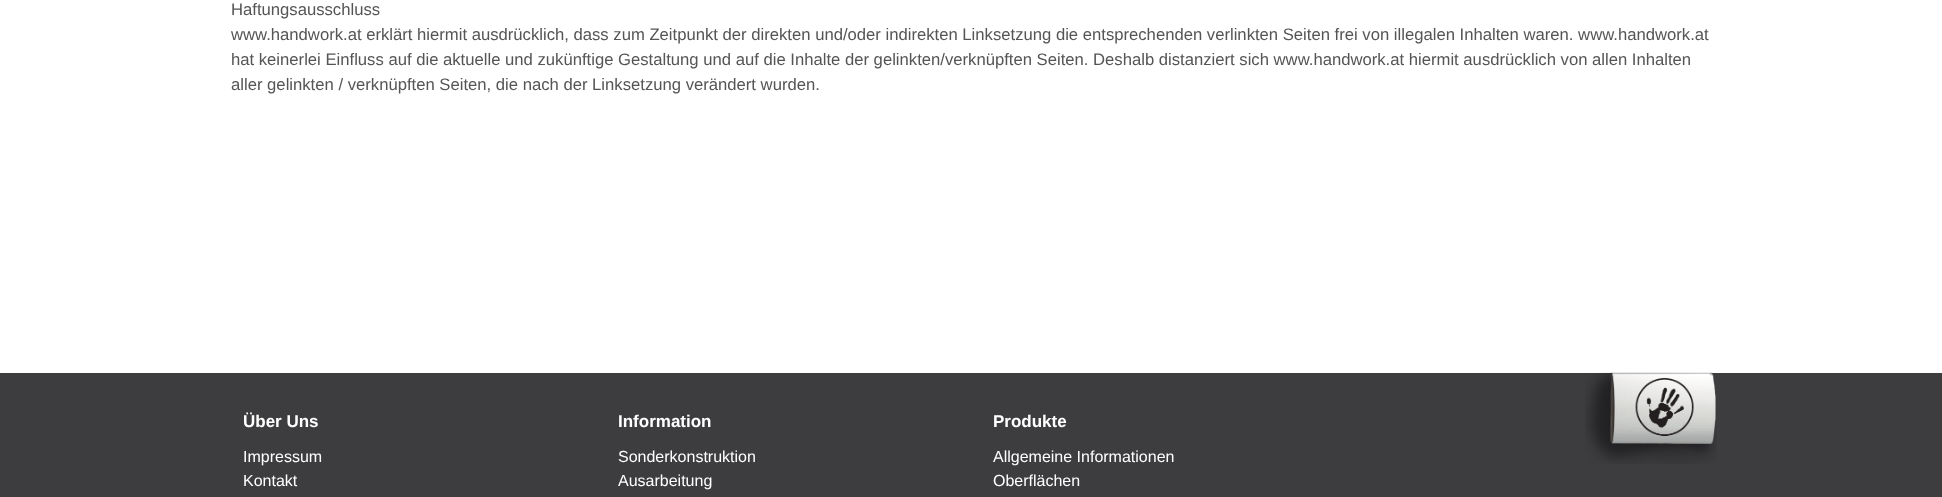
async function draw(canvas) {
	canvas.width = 1942;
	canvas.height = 497;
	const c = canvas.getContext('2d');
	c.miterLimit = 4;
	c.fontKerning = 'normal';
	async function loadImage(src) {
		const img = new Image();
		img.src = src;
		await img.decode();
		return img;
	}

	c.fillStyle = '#fff';
	c.fillRect(0, 0, 1942, 497);
	c.font = '16.67px Liberation Sans';
	c.fillStyle = '#555';
	for (const [text, x, y] of [
		['Haftungsausschluss', 231, 15],
		['www.handwork.at erklärt hiermit ausdrücklich, dass zum Zeitpunkt der direkten und/oder indirekten Linksetzung die entsprechenden verlinkten Seiten frei von illegalen Inhalten waren. www.handwork.at', 231, 40],
		['hat keinerlei Einfluss auf die aktuelle und zukünftige Gestaltung und auf die Inhalte der gelinkten/verknüpften Seiten. Deshalb distanziert sich www.handwork.at hiermit ausdrücklich von allen Inhalten', 231, 65],
		['aller gelinkten / verknüpften Seiten, die nach der Linksetzung verändert wurden.', 231, 90],
	]) {
		c.fillText(text, x, y);
	}
	c.fillStyle = '#3d3d40';
	c.fillRect(0, 373, 1942, 124);
	c.font = 'bold 17px Liberation Sans';
	c.fillStyle = '#fff';
	c.fillText('Über Uns', 243, 427);
	c.font = '16px Liberation Sans';
	c.fillText('Impressum', 243, 462);
	c.fillText('Kontakt', 243, 486);
	c.font = 'bold 17px Liberation Sans';
	c.fillText('Information', 618, 427);
	c.font = '16px Liberation Sans';
	c.fillText('Sonderkonstruktion', 618, 462);
	c.fillText('Ausarbeitung', 618, 486);
	c.font = 'bold 17px Liberation Sans';
	c.fillText('Produkte', 993, 427);
	c.font = '16px Liberation Sans';
	c.fillText('Allgemeine Informationen', 993, 462);
	c.fillText('Oberflächen', 993, 486);
	c.drawImage(await loadImage('img1.png'), 1585, 372, 132, 92);
}

draw(document.querySelector('canvas'));
